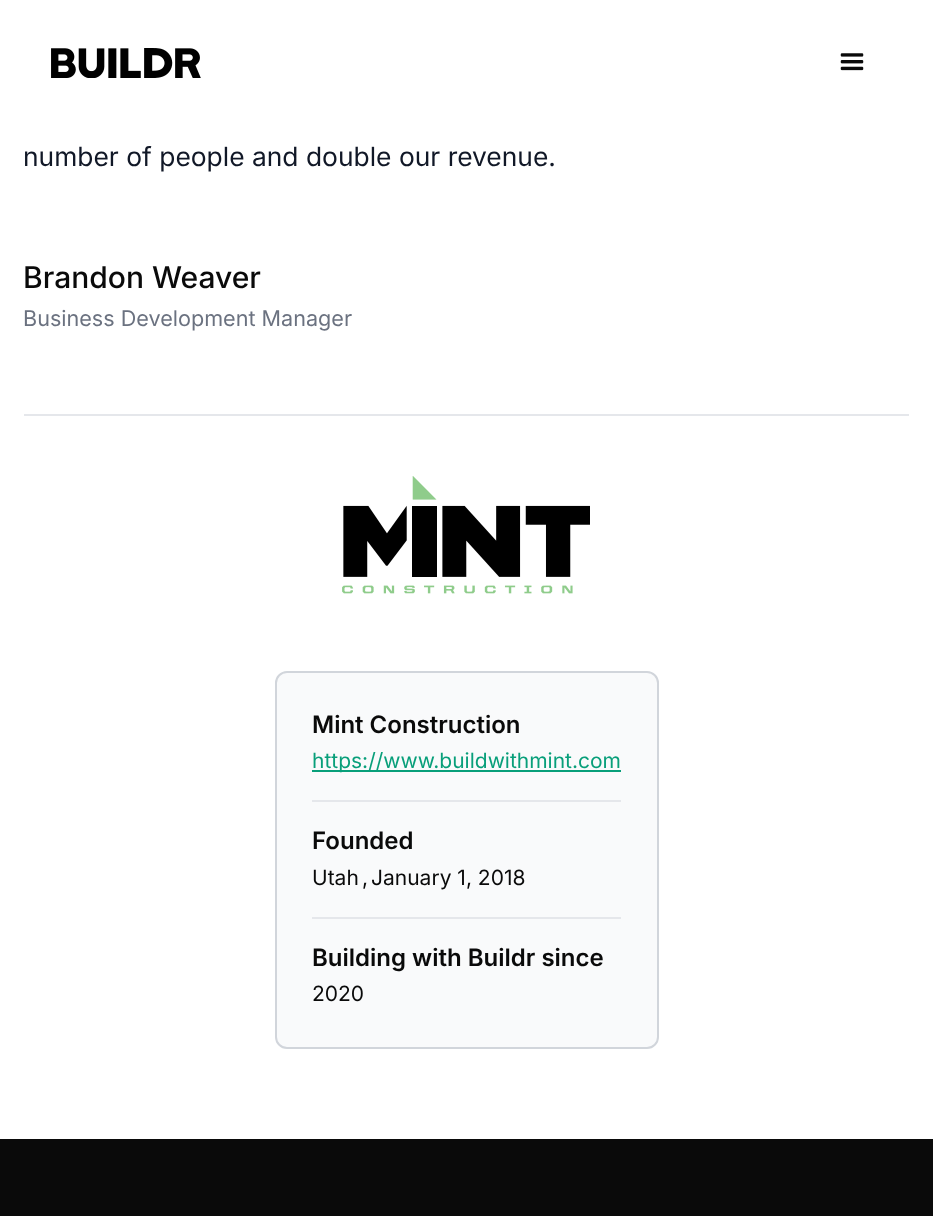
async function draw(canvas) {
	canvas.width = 933;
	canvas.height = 1216;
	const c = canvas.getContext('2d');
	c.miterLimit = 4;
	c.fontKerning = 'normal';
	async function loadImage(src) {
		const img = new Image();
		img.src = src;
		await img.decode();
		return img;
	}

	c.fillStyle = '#fff';
	c.fillRect(0, 0, 933, 1216);
	c.drawImage(await loadImage('img1.png'), 51, 48, 150, 30);
	c.drawImage(await loadImage('img2.png'), 840, 53, 24, 18);
	c.font = '26.4px Inter';
	c.fillStyle = '#111827';
	c.fillText('number of people and double our revenue.', 23, 166);
	c.font = '500 30px Inter';
	c.fillStyle = '#0a0a0a';
	c.fillText('Brandon Weaver', 23, 288);
	c.font = '21.6px Inter';
	c.fillStyle = '#6b7280';
	c.fillText('Business Development Manager', 23, 326);
	c.fillStyle = '#e5e7eb';
	c.fillRect(24, 414, 885, 2);
	c.drawImage(await loadImage('img3.png'), 342, 476, 248, 118);
	c.fillStyle = '#f9fafb';
	c.beginPath();
	c.roundRect(276, 672, 382, 376, 11);
	c.fill();
	c.strokeStyle = '#d1d5db';
	c.lineWidth = 2;
	c.stroke();
	c.font = '600 24px Inter';
	c.fillStyle = '#0a0a0a';
	c.fillText('Mint Construction', 312, 733);
	c.fillStyle = '#089f7a';
	c.fillRect(312, 770, 309, 2);
	c.font = '21px Inter';
	c.fillText('https://www.buildwithmint.com', 312, 768);
	c.fillStyle = '#e5e7eb';
	c.fillRect(312, 800, 309, 2);
	c.font = '600 24px Inter';
	c.fillStyle = '#0a0a0a';
	c.fillText('Founded', 312, 849);
	c.font = '21px Inter';
	for (const [text, x, y] of [
		['Utah', 312, 885],
		[',', 362, 885],
		['January 1, 2018', 371, 885],
	]) {
		c.fillText(text, x, y);
	}
	c.fillStyle = '#e5e7eb';
	c.fillRect(312, 917, 309, 2);
	c.font = '600 24px Inter';
	c.fillStyle = '#0a0a0a';
	c.fillText('Building with Buildr since', 312, 966);
	c.font = '21px Inter';
	c.fillText('2020', 312, 1001);
	c.fillRect(0, 1139, 933, 77);
}

draw(document.querySelector('canvas'));
